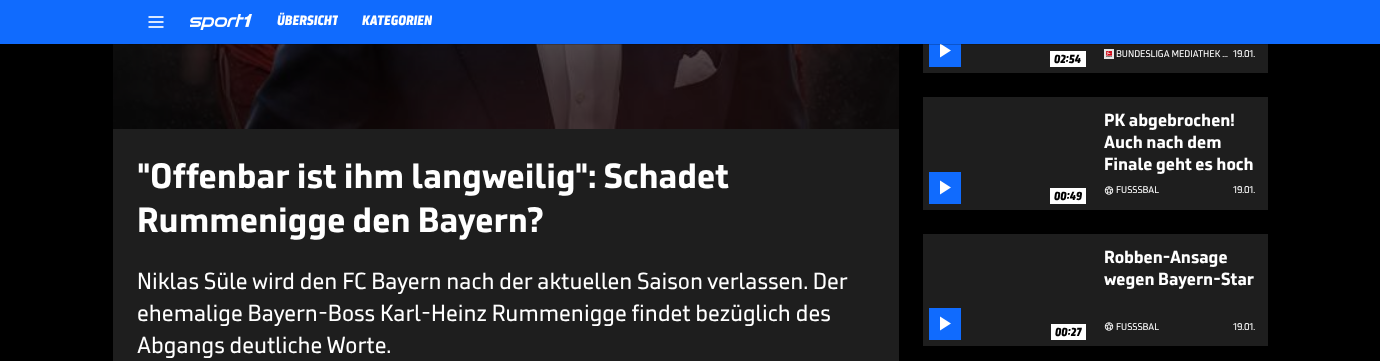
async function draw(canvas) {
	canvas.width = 1380;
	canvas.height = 361;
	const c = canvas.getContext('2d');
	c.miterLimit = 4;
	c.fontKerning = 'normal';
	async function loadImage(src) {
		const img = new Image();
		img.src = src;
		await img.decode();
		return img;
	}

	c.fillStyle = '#000';
	c.fillRect(0, 0, 1380, 361);
	c.drawImage(await loadImage('img3.png'), 113, 44, 786, 85);
	c.fillStyle = '#1e1e1e';
	c.fillRect(923, 44, 345, 29);
	c.fillStyle = '#106bfe';
	c.fillRect(929, 44, 32, 23);
	c.fillStyle = '#fff';
	c.beginPath();
	c.moveTo(940, 57.5);
	c.lineTo(940, 43.5);
	c.lineTo(951, 50.5);
	c.closePath();
	c.fill();
	c.fillStyle = '#00000033';
	c.filter = 'blur(0.5px)';
	c.beginPath();
	c.rect(0, 1, 1380, 44);
	c.fill();
	c.filter = 'none';
	c.fillStyle = '#106bfe';
	c.fillRect(0, 0, 1380, 44);
	c.drawImage(await loadImage('img1.png'), 148, 16, 16, 12);
	c.drawImage(await loadImage('img2.png'), 190, 14, 62, 16);
	c.save();
	c.beginPath();
	c.rect(277, 12, 61, 18);
	c.clip();
	c.font = 'italic 900 14px "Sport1"';
	c.fillStyle = '#fff';
	c.fillText('ÜBERSICHT', 277, 25);
	c.restore();
	c.save();
	c.beginPath();
	c.rect(362, 12, 70, 18);
	c.clip();
	c.font = 'italic 900 14px "Sport1"';
	c.fillStyle = '#fff';
	c.fillText('KATEGORIEN', 362, 25);
	c.restore();
	c.fillStyle = '#1e1e1e';
	c.fillRect(113, 129, 786, 232);
	c.font = 'bold 36px "Sport1"';
	c.fillStyle = '#fff';
	c.fillText('"Offenbar ist ihm langweilig": Schadet', 137, 188);
	c.fillText('Rummenigge den Bayern?', 137, 232);
	c.font = '24px "Sport1"';
	for (const [text, x, y] of [
		['Niklas Süle wird den FC Bayern nach der aktuellen Saison verlassen. Der', 137, 289],
		['ehemalige Bayern-Boss Karl-Heinz Rummenigge findet bezüglich des', 137, 321],
		['Abgangs deutliche Worte.', 137, 353],
	]) {
		c.fillText(text, x, y);
	}
	c.fillRect(1050, 51, 36, 16);
	c.font = 'italic 900 12px "Sport1"';
	c.fillStyle = '#000';
	c.fillText('02:54', 1054, 63);
	c.fillStyle = '#e5e5e5';
	c.fillRect(1104, 49, 10, 10);
	c.drawImage(await loadImage('img4.png'), 1106, 51, 6, 6);
	c.font = '10px "Sport1"';
	c.fillStyle = '#fff';
	c.fillText('BUNDESLIGA MEDIATHEK …', 1116, 57);
	c.fillText('19.01.', 1233, 57);
	c.fillStyle = '#1e1e1e';
	c.fillRect(923, 97, 345, 113);
	c.font = 'bold 18px "Sport1"';
	c.fillStyle = '#fff';
	for (const [text, x, y] of [
		['PK abgebrochen!', 1104, 126],
		['Auch nach dem', 1104, 148],
		['Finale geht es hoch', 1104, 170],
	]) {
		c.fillText(text, x, y);
	}
	c.drawImage(await loadImage('img5.png'), 1104, 186, 10, 9);
	c.font = '10px "Sport1"';
	c.fillText('FUSSSBAL', 1116, 193);
	c.fillText('19.01.', 1233, 193);
	c.fillStyle = '#106bfe';
	c.fillRect(929, 172, 32, 32);
	c.fillStyle = '#fff';
	c.beginPath();
	c.moveTo(940, 194.5);
	c.lineTo(940, 180.5);
	c.lineTo(951, 187.5);
	c.closePath();
	c.fill();
	c.fillRect(1050, 188, 36, 16);
	c.font = 'italic 900 12px "Sport1"';
	c.fillStyle = '#000';
	c.fillText('00:49', 1054, 200);
	c.fillStyle = '#1e1e1e';
	c.fillRect(923, 234, 345, 112);
	c.font = 'bold 18px "Sport1"';
	c.fillStyle = '#fff';
	c.fillText('Robben-Ansage', 1104, 263);
	c.fillText('wegen Bayern-Star', 1104, 285);
	c.drawImage(await loadImage('img5.png'), 1104, 322, 10, 9);
	c.font = '10px "Sport1"';
	c.fillText('FUSSSBAL', 1116, 330);
	c.fillText('19.01.', 1233, 330);
	c.fillStyle = '#106bfe';
	c.fillRect(929, 308, 32, 32);
	c.fillStyle = '#fff';
	c.beginPath();
	c.moveTo(940, 330.5);
	c.lineTo(940, 316.5);
	c.lineTo(951, 323.5);
	c.closePath();
	c.fill();
	c.fillRect(1051, 324, 35, 16);
	c.font = 'italic 900 12px "Sport1"';
	c.fillStyle = '#000';
	c.fillText('00:27', 1055, 336);
}

draw(document.querySelector('canvas'));
